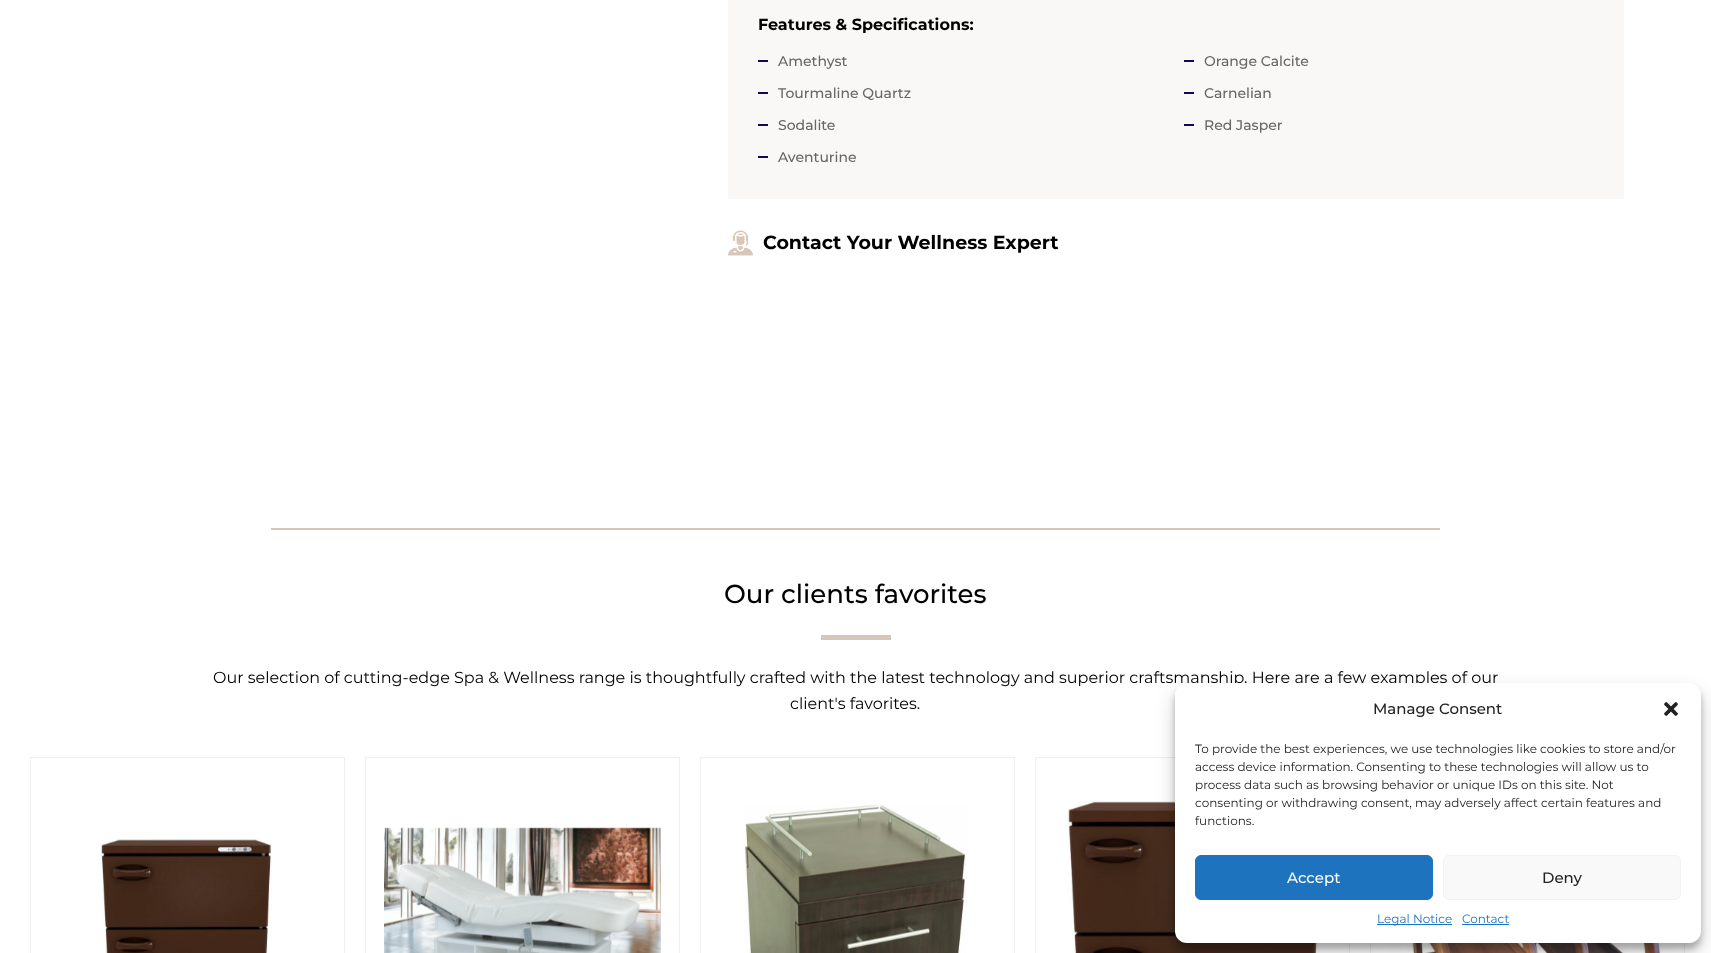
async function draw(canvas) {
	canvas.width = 1711;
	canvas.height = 953;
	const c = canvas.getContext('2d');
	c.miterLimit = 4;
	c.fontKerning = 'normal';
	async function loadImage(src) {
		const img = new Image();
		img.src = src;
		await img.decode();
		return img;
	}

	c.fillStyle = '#fff';
	c.fillRect(0, 0, 1711, 953);
	c.fillStyle = '#faf8f6';
	c.fillRect(728, 0, 896, 199);
	c.font = 'bold 16px Montserrat';
	c.fillStyle = '#000';
	c.fillText('Features & Specifications:', 758, 30);
	c.fillStyle = '#100b53';
	c.fillRect(758, 60, 10, 2);
	c.font = '500 14px Montserrat';
	c.fillStyle = '#666';
	c.fillText('Amethyst', 778, 66);
	c.fillStyle = '#100b53';
	c.fillRect(1184, 60, 10, 2);
	c.fillStyle = '#666';
	c.fillText('Orange Calcite', 1204, 66);
	c.fillStyle = '#100b53';
	c.fillRect(758, 92, 10, 2);
	c.fillStyle = '#666';
	c.fillText('Tourmaline Quartz', 778, 98);
	c.fillStyle = '#100b53';
	c.fillRect(1184, 92, 10, 2);
	c.fillStyle = '#666';
	c.fillText('Carnelian', 1204, 98);
	c.fillStyle = '#100b53';
	c.fillRect(758, 124, 10, 2);
	c.fillStyle = '#666';
	c.fillText('Sodalite', 778, 130);
	c.fillStyle = '#100b53';
	c.fillRect(1184, 124, 10, 2);
	c.fillStyle = '#666';
	c.fillText('Red Jasper', 1204, 130);
	c.fillStyle = '#100b53';
	c.fillRect(758, 156, 10, 2);
	c.fillStyle = '#666';
	c.fillText('Aventurine', 778, 162);
	c.drawImage(await loadImage('img1.png'), 728, 230, 25, 26);
	c.font = 'bold 19px Montserrat';
	c.fillStyle = '#000';
	c.fillText('Contact Your Wellness Expert', 763, 249);
	c.fillStyle = '#d6c7b9';
	c.fillRect(271, 528, 1169, 2);
	c.font = '500 26px Montserrat';
	c.fillStyle = '#000';
	c.fillText('Our clients favorites', 724, 603);
	c.fillStyle = '#d6c7b9';
	c.fillRect(821, 635, 70, 5);
	c.font = '16px Montserrat';
	c.fillStyle = '#000';
	c.fillText('Our selection of cutting-edge Spa & Wellness range is thoughtfully crafted with the latest technology and superior craftsmanship. Here are a few examples of our', 213, 683);
	c.fillText('client\'s favorites.', 790, 709);
	c.strokeStyle = '#efefef';
	c.strokeRect(30.5, 757.5, 314, 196);
	c.drawImage(await loadImage('img2.png'), 101, 838, 171, 115);
	c.strokeRect(365.5, 757.5, 314, 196);
	c.drawImage(await loadImage('img3.png'), 384, 827, 277, 126);
	c.strokeRect(700.5, 757.5, 314, 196);
	c.drawImage(await loadImage('img4.png'), 744, 804, 223, 149);
	c.strokeRect(1035.5, 757.5, 314, 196);
	c.drawImage(await loadImage('img5.png'), 1067, 801, 256, 152);
	c.strokeRect(1370.5, 757.5, 314, 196);
	c.drawImage(await loadImage('img6.png'), 1389, 943, 273, 10);
	c.fillStyle = '#0000003b';
	c.filter = 'blur(3px)';
	c.beginPath();
	c.roundRect(1175, 689, 526, 260, 12);
	c.fill();
	c.filter = 'none';
	c.fillStyle = '#00000030';
	c.filter = 'blur(10px)';
	c.beginPath();
	c.roundRect(1175, 693, 526, 260, 12);
	c.fill();
	c.filter = 'none';
	c.fillStyle = '#fff';
	c.beginPath();
	c.roundRect(1175, 683, 526, 260, 12);
	c.fill();
	c.font = '500 15px Montserrat';
	c.fillStyle = '#222';
	c.fillText('Manage Consent', 1373, 714);
	c.drawImage(await loadImage('img7.png'), 1664, 702, 14, 14);
	c.font = '12px Montserrat';
	for (const [text, x, y] of [
		['To provide the best experiences, we use technologies like cookies to store and/or', 1195, 753],
		['access device information. Consenting to these technologies will allow us to', 1195, 771],
		['process data such as browsing behavior or unique IDs on this site. Not', 1195, 789],
		['consenting or withdrawing consent, may adversely affect certain features and', 1195, 807],
		['functions.', 1195, 825],
	]) {
		c.fillText(text, x, y);
	}
	c.fillStyle = '#1e73be';
	c.beginPath();
	c.roundRect(1195.5, 855.5, 237, 44, 5.5);
	c.fill();
	c.strokeStyle = '#1e73be';
	c.stroke();
	c.font = '500 15px Montserrat';
	c.fillStyle = '#fff';
	c.fillText('Accept', 1287, 883);
	c.fillStyle = '#f9f9f9';
	c.beginPath();
	c.roundRect(1443.5, 855.5, 237, 44, 5.5);
	c.fill();
	c.strokeStyle = '#f2f2f2';
	c.stroke();
	c.fillStyle = '#222';
	c.fillText('Deny', 1542, 883);
	c.fillStyle = '#1e73be';
	c.fillRect(1377, 924, 75, 1);
	c.font = '12px Montserrat';
	c.fillText('Legal Notice', 1377, 923);
	c.fillText('Contact', 1462, 923);
	c.fillRect(1462, 924, 47, 1);
}

draw(document.querySelector('canvas'));
